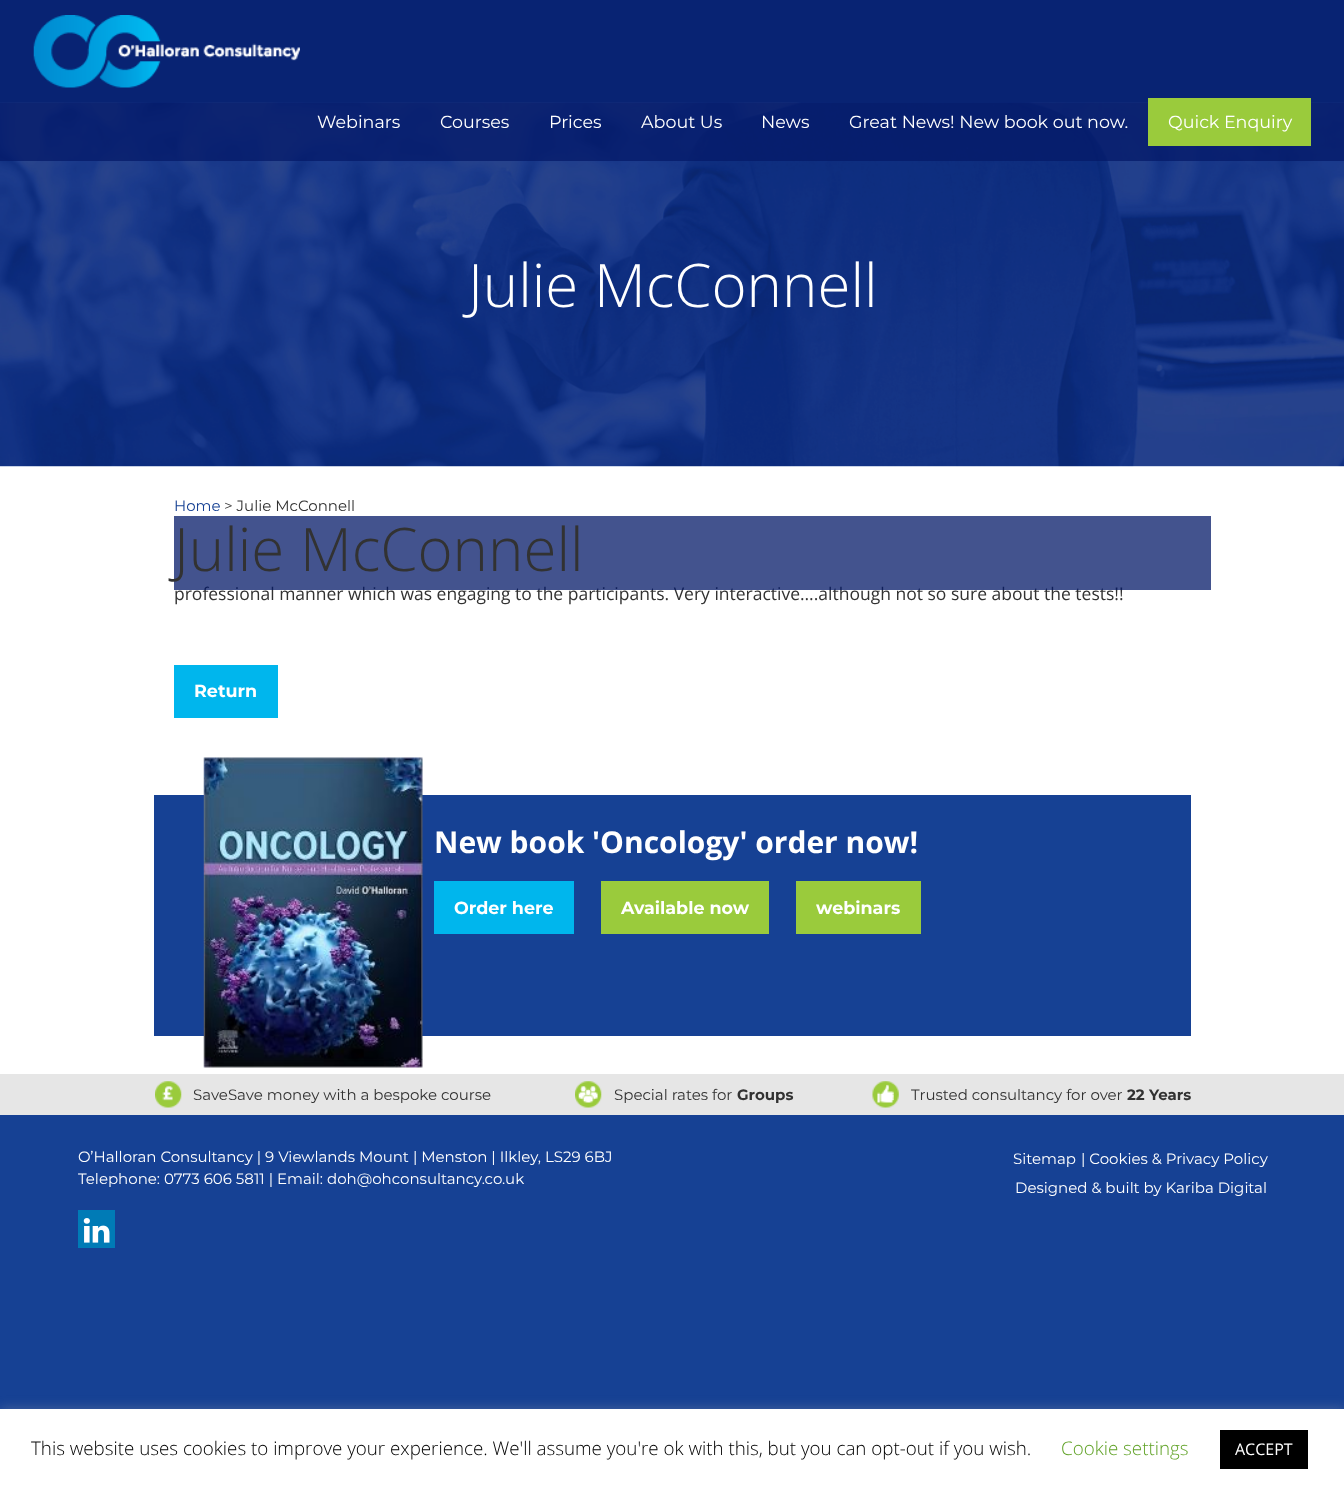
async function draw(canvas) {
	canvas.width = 1344;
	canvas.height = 1489;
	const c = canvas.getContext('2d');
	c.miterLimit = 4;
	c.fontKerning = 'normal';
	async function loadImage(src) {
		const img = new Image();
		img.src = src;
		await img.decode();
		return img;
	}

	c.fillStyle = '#164194';
	c.fillRect(0, 0, 1344, 1489);
	c.fillStyle = '#fff';
	c.fillRect(0, 466, 1344, 608);
	c.drawImage(await loadImage('img2.png'), 0, 102, 1344, 365);
	c.fillStyle = '#041968bf';
	c.fillRect(0, 0, 1344, 161);
	c.drawImage(await loadImage('img1.png'), 33, 15, 267, 73);
	c.font = '17.5px Montserrat';
	c.fillStyle = '#fff';
	for (const [text, x, y] of [
		['Webinars', 317, 128],
		['Courses', 440, 128],
		['Prices', 549, 128],
		['About Us', 641, 128],
		['News', 761, 128],
		['Great News! New book out now.', 849, 128],
	]) {
		c.fillText(text, x, y);
	}
	c.fillStyle = '#9acb3c';
	c.fillRect(1148, 98, 163, 48);
	c.fillStyle = '#fff';
	c.fillText('Quick Enquiry', 1168, 128);
	c.font = '300 60px Open Sans';
	c.fillText('Julie McConnell', 468, 307);
	c.font = '15px Montserrat';
	c.fillStyle = '#164194';
	c.fillText('Home', 174, 511);
	c.fillStyle = '#323232';
	c.fillText('> Julie McConnell', 224, 511);
	c.font = '17.5px Open Sans';
	c.fillText('professional manner which was engaging to the participants. Very interactive….although not so sure about the tests!!', 174, 600);
	c.fillStyle = '#041968bf';
	c.fillRect(174, 516, 1037, 74);
	c.font = '300 60px Open Sans';
	c.fillStyle = '#323232';
	c.fillText('Julie McConnell', 174, 571);
	c.fillStyle = '#00b6ed';
	c.fillRect(174, 665, 104, 53);
	c.font = 'bold 17.5px Montserrat';
	c.fillStyle = '#fff';
	c.fillText('Return', 194, 697);
	c.fillStyle = '#164194';
	c.fillRect(154, 795, 1037, 241);
	c.drawImage(await loadImage('img3.png'), 203, 757, 220, 311);
	c.font = 'bold 30px Open Sans';
	c.fillStyle = '#fff';
	c.fillText('New book \'Oncology\' order now!', 434, 853);
	c.fillStyle = '#00b6ed';
	c.fillRect(434, 881, 140, 53);
	c.font = 'bold 17.5px Montserrat';
	c.fillStyle = '#fff';
	c.fillText('Order here', 454, 914);
	c.fillStyle = '#9acb3c';
	c.fillRect(601, 881, 168, 53);
	c.fillStyle = '#fff';
	c.fillText('Available now', 621, 914);
	c.fillStyle = '#9acb3c';
	c.fillRect(796, 881, 125, 53);
	c.fillStyle = '#fff';
	c.fillText('webinars', 816, 914);
	c.fillStyle = '#e6e6e6';
	c.fillRect(0, 1074, 1344, 41);
	c.drawImage(await loadImage('img4.png'), 155, 1081, 27, 27);
	c.font = '15px Montserrat';
	c.fillStyle = '#323232';
	c.fillText('SaveSave money with a bespoke course', 193, 1100);
	c.drawImage(await loadImage('img5.png'), 575, 1081, 27, 27);
	c.fillText('Special rates for', 614, 1100);
	c.font = 'bold 15px Montserrat';
	c.fillText('Groups', 737, 1100);
	c.drawImage(await loadImage('img6.png'), 872, 1081, 27, 27);
	c.font = '15px Montserrat';
	c.fillText('Trusted consultancy for over', 911, 1100);
	c.font = 'bold 15px Montserrat';
	c.fillText('22 Years', 1127, 1100);
	c.font = '15px Montserrat';
	c.fillStyle = '#fff';
	c.fillText('O’Halloran Consultancy | 9 Viewlands Mount | Menston | Ilkley, LS29 6BJ', 78, 1162);
	c.fillText('Telephone: 0773 606 5811 | Email: doh@ohconsultancy.co.uk', 78, 1184);
	c.fillStyle = '#007bb6';
	c.fillRect(78, 1210, 37, 38);
	c.drawImage(await loadImage('img7.png'), 83, 1218, 27, 25);
	c.fillStyle = '#fff';
	for (const [text, x, y] of [
		['Sitemap', 1013, 1164],
		['| Cookies & Privacy Policy', 1081, 1164],
		['Designed & built by Kariba Digital', 1015, 1193],
	]) {
		c.fillText(text, x, y);
	}
	c.fillStyle = '#acabab4d';
	c.filter = 'blur(6px)';
	c.beginPath();
	c.rect(0, 1408, 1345, 81);
	c.fill();
	c.filter = 'none';
	c.fillStyle = '#fff';
	c.fillRect(0, 1409, 1344, 80);
	c.font = '300 18.75px Open Sans';
	c.fillStyle = '#000';
	c.fillText('This website uses cookies to improve your experience. We\'ll assume you\'re ok with this, but you can opt-out if you wish.', 31, 1455);
	c.fillStyle = '#62a329';
	c.fillText('Cookie settings', 1061, 1455);
	c.fillStyle = '#000';
	c.fillRect(1220, 1430, 88, 39);
	c.font = '16px Open Sans';
	c.fillStyle = '#fff';
	c.fillText('ACCEPT', 1235, 1455);
}

draw(document.querySelector('canvas'));
